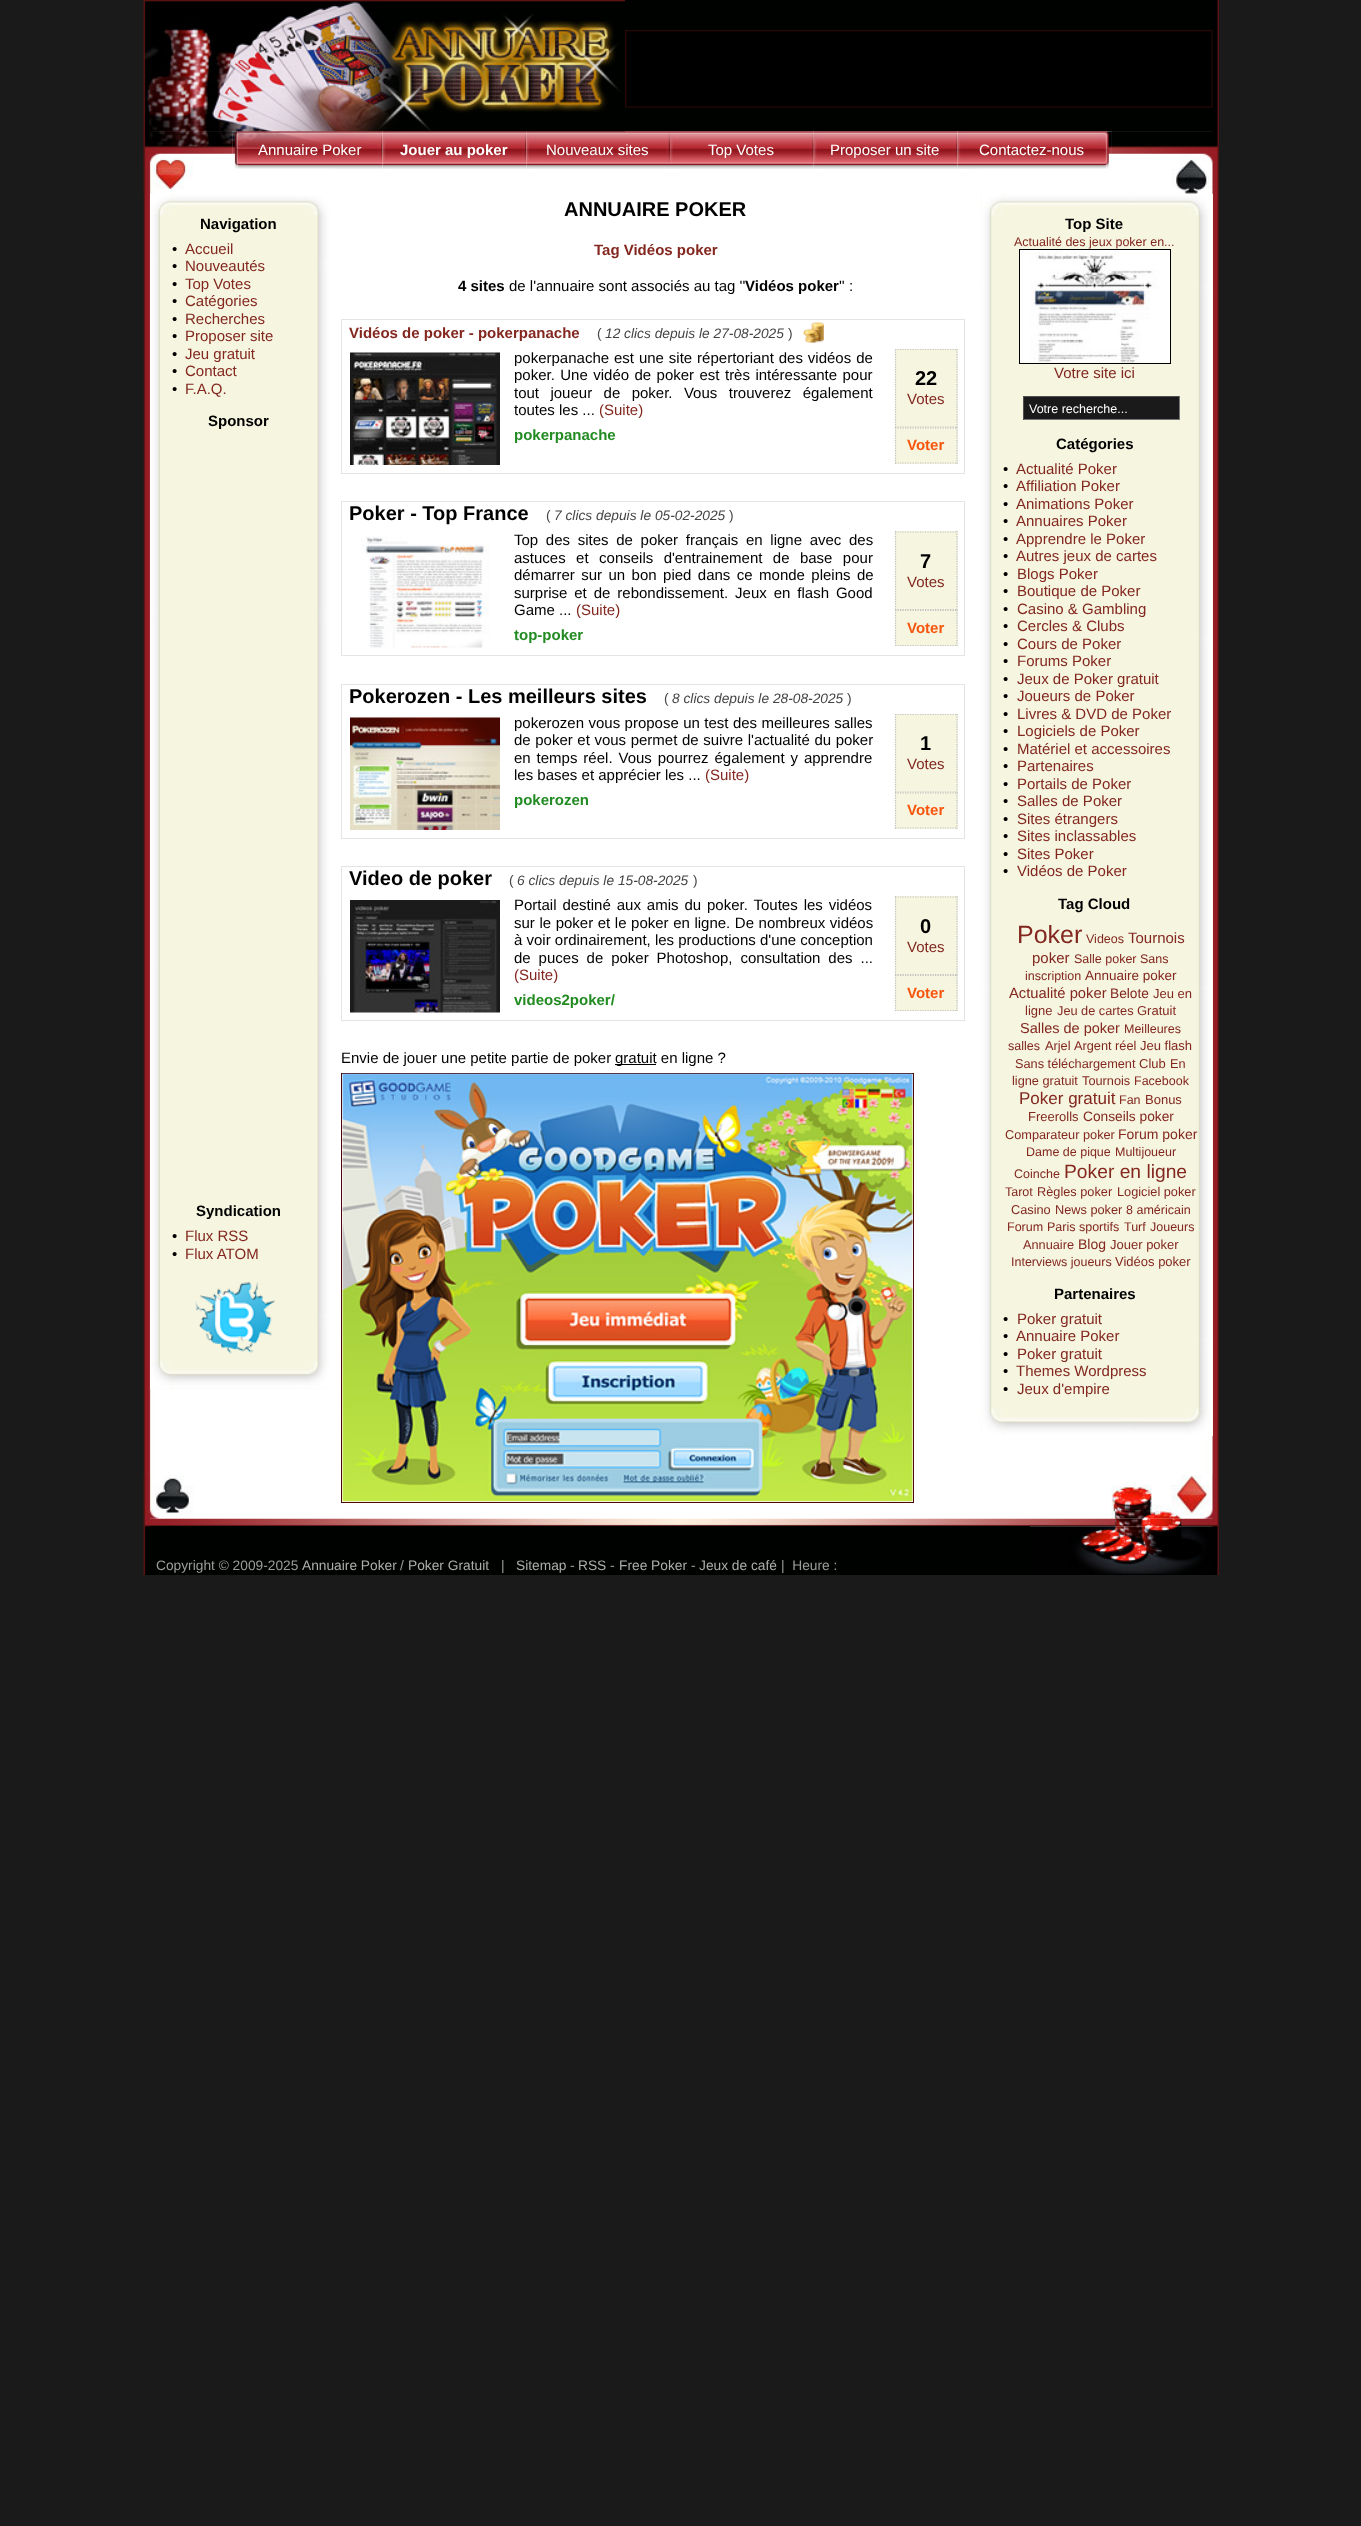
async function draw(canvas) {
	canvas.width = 1361;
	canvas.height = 2526;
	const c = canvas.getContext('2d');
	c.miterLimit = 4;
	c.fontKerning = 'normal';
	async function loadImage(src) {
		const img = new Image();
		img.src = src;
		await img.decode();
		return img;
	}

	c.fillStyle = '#1a1a1a';
	c.fillRect(0, 0, 1361, 2526);
	c.drawImage(await loadImage('img1.png'), 143, 0, 1076, 1575);
	c.drawImage(await loadImage('img5.png'), 143, 131, 90, 38);
	c.drawImage(await loadImage('img6.png'), 232, 131, 6, 38);
	c.drawImage(await loadImage('img7.png'), 237, 131, 146, 38);
	c.drawImage(await loadImage('img8.png'), 382, 131, 145, 38);
	c.drawImage(await loadImage('img9.png'), 526, 131, 144, 38);
	c.drawImage(await loadImage('img2.png'), 143, 0, 482, 132);
	c.fillStyle = '#000200';
	c.fillRect(625, 0, 588, 30);
	c.drawImage(await loadImage('img3.png'), 1212, 0, 7, 132);
	c.fillRect(625, 30, 588, 101);
	c.drawImage(await loadImage('img4.png'), 625, 30, 588, 78);
	c.font = '15px Liberation Sans';
	c.fillStyle = '#fff';
	c.fillText('Annuaire Poker', 258, 155);
	c.font = 'bold 15px Liberation Sans';
	c.fillText('Jouer au poker', 400, 155);
	c.font = '15px Liberation Sans';
	c.fillText('Nouveaux sites', 546, 155);
	c.drawImage(await loadImage('img10.png'), 670, 131, 144, 38);
	c.fillText('Top Votes', 708, 155);
	c.drawImage(await loadImage('img11.png'), 813, 131, 145, 38);
	c.fillText('Proposer un site', 830, 155);
	c.drawImage(await loadImage('img12.png'), 957, 131, 150, 38);
	c.fillText('Contactez-nous', 979, 155);
	c.drawImage(await loadImage('img13.png'), 1106, 131, 6, 38);
	c.drawImage(await loadImage('img14.png'), 1111, 131, 108, 38);
	c.drawImage(await loadImage('img15.png'), 143, 168, 188, 26);
	c.drawImage(await loadImage('img16.png'), 982, 168, 237, 26);
	c.font = 'bold 20px Liberation Sans';
	c.fillStyle = '#000';
	c.fillText('ANNUAIRE POKER', 564, 216);
	c.font = 'bold 15px Liberation Sans';
	c.fillStyle = '#83271f';
	c.fillText('Tag Vidéos poker', 594, 255);
	c.fillStyle = '#000';
	c.fillText('4 sites', 458, 291);
	c.font = '15px Liberation Sans';
	c.fillText('de l\'annuaire sont associés au tag \'\'', 509, 291);
	c.font = 'bold 15px Liberation Sans';
	c.fillText('Vidéos poker', 745, 291);
	c.font = '15px Liberation Sans';
	c.fillText('\'\' :', 839, 291);
	c.strokeStyle = '#e4e4e4';
	c.strokeRect(341.5, 319.5, 623, 154);
	c.font = 'bold 15px Liberation Sans';
	c.fillStyle = '#83271f';
	c.fillText('Vidéos de poker - pokerpanache', 349, 338);
	c.font = '13.75px Liberation Sans';
	c.fillStyle = '#444';
	c.fillText('(', 597, 338);
	c.font = 'italic 13.75px Liberation Sans';
	c.fillText('12 clics depuis le 27-08-2025', 605, 338);
	c.font = '13.75px Liberation Sans';
	c.fillText(')', 788, 338);
	c.drawImage(await loadImage('img17.png'), 803, 322, 21, 21);
	c.drawImage(await loadImage('img18.png'), 350, 352, 150, 113);
	c.wordSpacing = '0.75px';
	c.font = '15px Liberation Sans';
	c.fillStyle = '#000';
	c.fillText('pokerpanache est une site répertoriant des vidéos de', 514, 363);
	c.wordSpacing = '1.25px';
	c.fillText('poker. Une vidéo de poker est très intéressante pour', 514, 380);
	c.wordSpacing = '7.25px';
	c.fillText('tout joueur de poker. Vous trouverez également', 514, 398);
	c.wordSpacing = '0px';
	c.fillText('toutes les ...', 514, 415);
	c.fillStyle = '#83271f';
	c.fillText('(Suite)', 599, 415);
	c.font = 'bold 15px Liberation Sans';
	c.fillStyle = '#228b22';
	c.fillText('pokerpanache', 514, 440);
	c.fillStyle = '#f5f5e0';
	c.fillRect(895, 349, 63, 115);
	c.beginPath();
	c.moveTo(895, 349.5);
	c.lineTo(957.5, 349.5);
	c.strokeStyle = '#c2c2c2';
	c.lineWidth = 1.2;
	c.setLineDash([1.25, 1.25]);
	c.stroke();
	c.beginPath();
	c.moveTo(957, 349);
	c.lineTo(957, 427.5);
	c.stroke();
	c.beginPath();
	c.moveTo(895, 427);
	c.lineTo(957.5, 427);
	c.stroke();
	c.beginPath();
	c.moveTo(895.5, 349);
	c.lineTo(895.5, 427.5);
	c.stroke();
	c.font = 'bold 20px Liberation Sans';
	c.fillStyle = '#000';
	c.fillText('22', 915, 385);
	c.font = '15px Liberation Sans';
	c.fillStyle = '#83271f';
	c.fillText('Votes', 907, 404);
	c.beginPath();
	c.moveTo(895, 428);
	c.lineTo(957.5, 428);
	c.moveTo(957, 427.5);
	c.lineTo(957, 464);
	c.moveTo(895, 463);
	c.lineTo(957.5, 463);
	c.stroke();
	c.beginPath();
	c.moveTo(895.5, 427.5);
	c.lineTo(895.5, 464);
	c.stroke();
	c.font = 'bold 15px Liberation Sans';
	c.fillStyle = '#f7560f';
	c.fillText('Voter', 907, 450);
	c.strokeStyle = '#e4e4e4';
	c.lineWidth = 1;
	c.setLineDash([]);
	c.strokeRect(341.5, 501.5, 623, 154);
	c.font = 'bold 20px Liberation Sans';
	c.fillStyle = '#000';
	c.fillText('Poker - Top France', 349, 520);
	c.font = '13.75px Liberation Sans';
	c.fillStyle = '#444';
	c.fillText('(', 546, 520);
	c.font = 'italic 13.75px Liberation Sans';
	c.fillText('7 clics depuis le 05-02-2025', 554, 520);
	c.font = '13.75px Liberation Sans';
	c.fillText(')', 729, 520);
	c.drawImage(await loadImage('img19.png'), 361, 535, 129, 113);
	c.wordSpacing = '3.5px';
	c.font = '15px Liberation Sans';
	c.fillStyle = '#000';
	c.fillText('Top des sites de poker français en ligne avec des', 514, 545);
	c.wordSpacing = '6.25px';
	c.fillText('astuces et conseils d\'entrainement de base pour', 514, 563);
	c.wordSpacing = '2.25px';
	c.fillText('démarrer sur un bon pied dans ce monde pleins de', 514, 580);
	c.wordSpacing = '2.75px';
	c.fillText('surprise et de rebondissement. Jeux en flash Good', 514, 598);
	c.wordSpacing = '0px';
	c.fillText('Game ...', 514, 615);
	c.fillStyle = '#83271f';
	c.fillText('(Suite)', 576, 615);
	c.font = 'bold 15px Liberation Sans';
	c.fillStyle = '#228b22';
	c.fillText('top-poker', 514, 640);
	c.fillStyle = '#f5f5e0';
	c.fillRect(895, 531, 63, 115);
	c.beginPath();
	c.moveTo(895, 532);
	c.lineTo(957.5, 532);
	c.strokeStyle = '#c2c2c2';
	c.lineWidth = 1.2;
	c.setLineDash([1.25, 1.25]);
	c.stroke();
	c.beginPath();
	c.moveTo(957, 531);
	c.lineTo(957, 610);
	c.stroke();
	c.beginPath();
	c.moveTo(895, 609.5);
	c.lineTo(957.5, 609.5);
	c.stroke();
	c.beginPath();
	c.moveTo(895.5, 531);
	c.lineTo(895.5, 610);
	c.stroke();
	c.font = 'bold 20px Liberation Sans';
	c.fillStyle = '#000';
	c.fillText('7', 920, 568);
	c.font = '15px Liberation Sans';
	c.fillStyle = '#83271f';
	c.fillText('Votes', 907, 587);
	c.beginPath();
	c.moveTo(895, 610.5);
	c.lineTo(957.5, 610.5);
	c.moveTo(957, 610);
	c.lineTo(957, 646);
	c.moveTo(895, 645.5);
	c.lineTo(957.5, 645.5);
	c.stroke();
	c.beginPath();
	c.moveTo(895.5, 610);
	c.lineTo(895.5, 646);
	c.stroke();
	c.font = 'bold 15px Liberation Sans';
	c.fillStyle = '#f7560f';
	c.fillText('Voter', 907, 633);
	c.strokeStyle = '#e4e4e4';
	c.lineWidth = 1;
	c.setLineDash([]);
	c.strokeRect(341.5, 684.5, 623, 154);
	c.font = 'bold 20px Liberation Sans';
	c.fillStyle = '#000';
	c.fillText('Pokerozen - Les meilleurs sites', 349, 703);
	c.font = '13.75px Liberation Sans';
	c.fillStyle = '#444';
	c.fillText('(', 664, 703);
	c.font = 'italic 13.75px Liberation Sans';
	c.fillText('8 clics depuis le 28-08-2025', 672, 703);
	c.font = '13.75px Liberation Sans';
	c.fillText(')', 847, 703);
	c.drawImage(await loadImage('img20.png'), 350, 717, 150, 113);
	c.wordSpacing = '0.25px';
	c.font = '15px Liberation Sans';
	c.fillStyle = '#000';
	c.fillText('pokerozen vous propose un test des meilleures salles', 514, 728);
	c.wordSpacing = '0.4px';
	c.fillText('de poker et vous permet de suivre l\'actualité du poker', 514, 745);
	c.wordSpacing = '1.75px';
	c.fillText('en temps réel. Vous pourrez également y apprendre', 514, 763);
	c.wordSpacing = '0px';
	c.fillText('les bases et apprécier les ...', 514, 780);
	c.fillStyle = '#83271f';
	c.fillText('(Suite)', 705, 780);
	c.font = 'bold 15px Liberation Sans';
	c.fillStyle = '#228b22';
	c.fillText('pokerozen', 514, 805);
	c.fillStyle = '#f5f5e0';
	c.fillRect(895, 714, 63, 115);
	c.beginPath();
	c.moveTo(895, 714.5);
	c.lineTo(957.5, 714.5);
	c.strokeStyle = '#c2c2c2';
	c.lineWidth = 1.2;
	c.setLineDash([1.25, 1.25]);
	c.stroke();
	c.beginPath();
	c.moveTo(957, 714);
	c.lineTo(957, 792.5);
	c.stroke();
	c.beginPath();
	c.moveTo(895, 792);
	c.lineTo(957.5, 792);
	c.stroke();
	c.beginPath();
	c.moveTo(895.5, 714);
	c.lineTo(895.5, 792.5);
	c.stroke();
	c.font = 'bold 20px Liberation Sans';
	c.fillStyle = '#000';
	c.fillText('1', 920, 750);
	c.font = '15px Liberation Sans';
	c.fillStyle = '#83271f';
	c.fillText('Votes', 907, 769);
	c.beginPath();
	c.moveTo(895, 793);
	c.lineTo(957.5, 793);
	c.moveTo(957, 792.5);
	c.lineTo(957, 829);
	c.moveTo(895, 828);
	c.lineTo(957.5, 828);
	c.stroke();
	c.beginPath();
	c.moveTo(895.5, 792.5);
	c.lineTo(895.5, 829);
	c.stroke();
	c.font = 'bold 15px Liberation Sans';
	c.fillStyle = '#f7560f';
	c.fillText('Voter', 907, 815);
	c.strokeStyle = '#e4e4e4';
	c.lineWidth = 1;
	c.setLineDash([]);
	c.strokeRect(341.5, 866.5, 623, 154);
	c.font = 'bold 20px Liberation Sans';
	c.fillStyle = '#000';
	c.fillText('Video de poker', 349, 885);
	c.font = '13.75px Liberation Sans';
	c.fillStyle = '#444';
	c.fillText('(', 509, 885);
	c.font = 'italic 13.75px Liberation Sans';
	c.fillText('6 clics depuis le 15-08-2025', 517, 885);
	c.font = '13.75px Liberation Sans';
	c.fillText(')', 693, 885);
	c.drawImage(await loadImage('img21.png'), 350, 900, 150, 113);
	c.wordSpacing = '1.75px';
	c.font = '15px Liberation Sans';
	c.fillStyle = '#000';
	c.fillText('Portail destiné aux amis du poker. Toutes les vidéos', 514, 910);
	c.wordSpacing = '0.4px';
	c.fillText('sur le poker et le poker en ligne. De nombreux vidéos', 514, 928);
	c.wordSpacing = '0px';
	c.fillText('à voir ordinairement, les productions d\'une conception', 514, 945);
	c.wordSpacing = '3.75px';
	c.fillText('de puces de poker Photoshop, consultation des ...', 514, 963);
	c.wordSpacing = '0px';
	c.fillStyle = '#83271f';
	c.fillText('(Suite)', 514, 980);
	c.font = 'bold 15px Liberation Sans';
	c.fillStyle = '#228b22';
	c.fillText('videos2poker/', 514, 1005);
	c.fillStyle = '#f5f5e0';
	c.fillRect(895, 896, 63, 115);
	c.beginPath();
	c.moveTo(895, 897);
	c.lineTo(957.5, 897);
	c.strokeStyle = '#c2c2c2';
	c.lineWidth = 1.2;
	c.setLineDash([1.25, 1.25]);
	c.stroke();
	c.beginPath();
	c.moveTo(957, 896);
	c.lineTo(957, 975);
	c.stroke();
	c.beginPath();
	c.moveTo(895, 974.5);
	c.lineTo(957.5, 974.5);
	c.stroke();
	c.beginPath();
	c.moveTo(895.5, 896);
	c.lineTo(895.5, 975);
	c.stroke();
	c.font = 'bold 20px Liberation Sans';
	c.fillStyle = '#000';
	c.fillText('0', 920, 933);
	c.font = '15px Liberation Sans';
	c.fillStyle = '#83271f';
	c.fillText('Votes', 907, 952);
	c.beginPath();
	c.moveTo(895, 975.5);
	c.lineTo(957.5, 975.5);
	c.moveTo(957, 975);
	c.lineTo(957, 1011);
	c.moveTo(895, 1010.5);
	c.lineTo(957.5, 1010.5);
	c.stroke();
	c.beginPath();
	c.moveTo(895.5, 975);
	c.lineTo(895.5, 1011);
	c.stroke();
	c.font = 'bold 15px Liberation Sans';
	c.fillStyle = '#f7560f';
	c.fillText('Voter', 907, 998);
	c.font = '15px Liberation Sans';
	c.fillStyle = '#000';
	c.fillText('Envie de jouer une petite partie de poker', 341, 1063);
	c.strokeStyle = '#50040c';
	c.lineWidth = 1;
	c.setLineDash([]);
	c.strokeRect(341.5, 1073.5, 572, 429);
	c.fillRect(615, 1064, 41, 1);
	c.fillText('gratuit en ligne ?', 615, 1063);
	c.drawImage(await loadImage('img22.png'), 342, 1073, 571, 429);
	c.fillStyle = '#f5f5e0';
	c.fillRect(150, 194, 181, 1195);
	c.drawImage(await loadImage('img23.png'), 150, 193, 23, 22);
	c.drawImage(await loadImage('img24.png'), 172, 194, 133, 12);
	c.drawImage(await loadImage('img25.png'), 305, 194, 26, 21);
	c.drawImage(await loadImage('img26.png'), 150, 215, 10, 1147);
	c.font = 'bold 15px Liberation Sans';
	c.fillStyle = '#000';
	c.fillText('Navigation', 200, 229);
	c.font = '15px Liberation Sans';
	c.fillText('•', 172, 254);
	c.fillStyle = '#83271f';
	c.fillText('Accueil', 185, 254);
	c.fillStyle = '#000';
	c.fillText('•', 172, 271);
	c.fillStyle = '#83271f';
	c.fillText('Nouveautés', 185, 271);
	c.fillStyle = '#000';
	c.fillText('•', 172, 289);
	c.fillStyle = '#83271f';
	c.fillText('Top Votes', 185, 289);
	c.fillStyle = '#000';
	c.fillText('•', 172, 306);
	c.fillStyle = '#83271f';
	c.fillText('Catégories', 185, 306);
	c.fillStyle = '#000';
	c.fillText('•', 172, 324);
	c.fillStyle = '#83271f';
	c.fillText('Recherches', 185, 324);
	c.fillStyle = '#000';
	c.fillText('•', 172, 341);
	c.fillStyle = '#83271f';
	c.fillText('Proposer site', 185, 341);
	c.fillStyle = '#000';
	c.fillText('•', 172, 359);
	c.fillStyle = '#83271f';
	c.fillText('Jeu gratuit', 185, 359);
	c.fillStyle = '#000';
	c.fillText('•', 172, 376);
	c.fillStyle = '#83271f';
	c.fillText('Contact', 185, 376);
	c.fillStyle = '#000';
	c.fillText('•', 172, 394);
	c.fillStyle = '#83271f';
	c.fillText('F.A.Q.', 185, 394);
	c.font = 'bold 15px Liberation Sans';
	c.fillStyle = '#000';
	c.fillText('Sponsor', 208, 426);
	c.fillText('Syndication', 196, 1216);
	c.font = '15px Liberation Sans';
	c.fillText('•', 172, 1241);
	c.fillStyle = '#83271f';
	c.fillText('Flux RSS', 185, 1241);
	c.fillStyle = '#000';
	c.fillText('•', 172, 1259);
	c.fillStyle = '#83271f';
	c.fillText('Flux ATOM', 185, 1259);
	c.drawImage(await loadImage('img27.png'), 195, 1282, 80, 72);
	c.drawImage(await loadImage('img28.png'), 317, 215, 14, 1147);
	c.drawImage(await loadImage('img29.png'), 150, 1361, 23, 28);
	c.drawImage(await loadImage('img30.png'), 172, 1370, 133, 19);
	c.drawImage(await loadImage('img31.png'), 305, 1361, 26, 28);
	c.fillStyle = '#f5f5e0';
	c.fillRect(981, 194, 232, 1242);
	c.drawImage(await loadImage('img32.png'), 981, 194, 23, 21);
	c.drawImage(await loadImage('img33.png'), 1004, 193, 183, 13);
	c.drawImage(await loadImage('img34.png'), 1186, 193, 27, 22);
	c.drawImage(await loadImage('img35.png'), 981, 215, 11, 1194);
	c.font = 'bold 15px Liberation Sans';
	c.fillStyle = '#000';
	c.fillText('Top Site', 1065, 229);
	c.font = '12.5px Liberation Sans';
	c.fillStyle = '#83271f';
	c.fillText('Actualité des jeux poker en...', 1014, 246);
	c.strokeStyle = '#000';
	c.strokeRect(1019.5, 249.5, 151, 114);
	c.drawImage(await loadImage('img36.png'), 1020, 250, 150, 113);
	c.font = '15px Liberation Sans';
	c.fillText('Votre site ici', 1054, 378);
	for (const [x, y, w, h, color] of [
		[1024, 397, 155, 22, '#1a1a1a'],
		[1023, 396, 157, 1, '#4f4f4f'],
		[1179, 396, 1, 24, '#767676'],
		[1023, 419, 157, 1, '#767676'],
		[1023, 396, 1, 24, '#4f4f4f'],
	]) {
		c.fillStyle = color;
		c.fillRect(x, y, w, h);
	}
	c.font = '12.5px Liberation Sans';
	c.fillStyle = '#fff';
	c.fillText('Votre recherche...', 1029, 413);
	c.font = 'bold 15px Liberation Sans';
	c.fillStyle = '#000';
	c.fillText('Catégories', 1056, 449);
	c.font = '15px Liberation Sans';
	c.fillText('•', 1003, 474);
	c.fillStyle = '#83271f';
	c.fillText('Actualité Poker', 1016, 474);
	c.fillStyle = '#000';
	c.fillText('•', 1003, 491);
	c.fillStyle = '#83271f';
	c.fillText('Affiliation Poker', 1016, 491);
	c.fillStyle = '#000';
	c.fillText('•', 1003, 509);
	c.fillStyle = '#83271f';
	c.fillText('Animations Poker', 1016, 509);
	c.fillStyle = '#000';
	c.fillText('•', 1003, 526);
	c.fillStyle = '#83271f';
	c.fillText('Annuaires Poker', 1016, 526);
	c.fillStyle = '#000';
	c.fillText('•', 1003, 544);
	c.fillStyle = '#83271f';
	c.fillText('Apprendre le Poker', 1016, 544);
	c.fillStyle = '#000';
	c.fillText('•', 1003, 561);
	c.fillStyle = '#83271f';
	c.fillText('Autres jeux de cartes', 1016, 561);
	c.fillStyle = '#000';
	c.fillText('•', 1003, 579);
	c.fillStyle = '#83271f';
	c.fillText('Blogs Poker', 1017, 579);
	c.fillStyle = '#000';
	c.fillText('•', 1003, 596);
	c.fillStyle = '#83271f';
	c.fillText('Boutique de Poker', 1017, 596);
	c.fillStyle = '#000';
	c.fillText('•', 1003, 614);
	c.fillStyle = '#83271f';
	c.fillText('Casino & Gambling', 1017, 614);
	c.fillStyle = '#000';
	c.fillText('•', 1003, 631);
	c.fillStyle = '#83271f';
	c.fillText('Cercles & Clubs', 1017, 631);
	c.fillStyle = '#000';
	c.fillText('•', 1003, 649);
	c.fillStyle = '#83271f';
	c.fillText('Cours de Poker', 1017, 649);
	c.fillStyle = '#000';
	c.fillText('•', 1003, 666);
	c.fillStyle = '#83271f';
	c.fillText('Forums Poker', 1017, 666);
	c.fillStyle = '#000';
	c.fillText('•', 1003, 684);
	c.fillStyle = '#83271f';
	c.fillText('Jeux de Poker gratuit', 1017, 684);
	c.fillStyle = '#000';
	c.fillText('•', 1003, 701);
	c.fillStyle = '#83271f';
	c.fillText('Joueurs de Poker', 1017, 701);
	c.fillStyle = '#000';
	c.fillText('•', 1003, 719);
	c.fillStyle = '#83271f';
	c.fillText('Livres & DVD de Poker', 1017, 719);
	c.fillStyle = '#000';
	c.fillText('•', 1003, 736);
	c.fillStyle = '#83271f';
	c.fillText('Logiciels de Poker', 1017, 736);
	c.fillStyle = '#000';
	c.fillText('•', 1003, 754);
	c.fillStyle = '#83271f';
	c.fillText('Matériel et accessoires', 1017, 754);
	c.fillStyle = '#000';
	c.fillText('•', 1003, 771);
	c.fillStyle = '#83271f';
	c.fillText('Partenaires', 1017, 771);
	c.fillStyle = '#000';
	c.fillText('•', 1003, 789);
	c.fillStyle = '#83271f';
	c.fillText('Portails de Poker', 1017, 789);
	c.fillStyle = '#000';
	c.fillText('•', 1003, 806);
	c.fillStyle = '#83271f';
	c.fillText('Salles de Poker', 1017, 806);
	c.fillStyle = '#000';
	c.fillText('•', 1003, 824);
	c.fillStyle = '#83271f';
	c.fillText('Sites étrangers', 1017, 824);
	c.fillStyle = '#000';
	c.fillText('•', 1003, 841);
	c.fillStyle = '#83271f';
	c.fillText('Sites inclassables', 1017, 841);
	c.fillStyle = '#000';
	c.fillText('•', 1003, 859);
	c.fillStyle = '#83271f';
	c.fillText('Sites Poker', 1017, 859);
	c.fillStyle = '#000';
	c.fillText('•', 1003, 876);
	c.fillStyle = '#83271f';
	c.fillText('Vidéos de Poker', 1017, 876);
	c.font = 'bold 15px Liberation Sans';
	c.fillStyle = '#000';
	c.fillText('Tag Cloud', 1058, 909);
	c.font = '25px Liberation Sans';
	c.fillStyle = '#83271f';
	c.fillText('Poker', 1017, 943);
	c.font = '12.5px Liberation Sans';
	c.fillText('Videos', 1086, 943);
	c.font = '15px Liberation Sans';
	c.fillText('Tournois', 1128, 943);
	c.fillText('poker', 1032, 963);
	c.font = '12.5px Liberation Sans';
	for (const [text, x, y] of [
		['Salle poker', 1074, 963],
		['Sans', 1140, 963],
		['inscription', 1025, 980],
	]) {
		c.fillText(text, x, y);
	}
	c.font = '13.5px Liberation Sans';
	c.fillText('Annuaire poker', 1085, 980);
	c.font = '14.75px Liberation Sans';
	c.fillText('Actualité poker', 1009, 998);
	c.font = '13.75px Liberation Sans';
	c.fillText('Belote', 1110, 998);
	c.font = '13px Liberation Sans';
	c.fillText('Jeu en', 1153, 998);
	c.fillText('ligne', 1025, 1015);
	c.font = '12.75px Liberation Sans';
	c.fillText('Jeu de cartes', 1057, 1015);
	c.font = '13px Liberation Sans';
	c.fillText('Gratuit', 1137, 1015);
	c.font = '14.5px Liberation Sans';
	c.fillText('Salles de poker', 1020, 1033);
	c.font = '12.5px Liberation Sans';
	c.fillText('Meilleures', 1124, 1033);
	c.fillText('salles', 1008, 1050);
	c.font = '12.75px Liberation Sans';
	c.fillText('Arjel', 1045, 1050);
	c.fillText('Argent réel', 1074, 1050);
	c.font = '13px Liberation Sans';
	c.fillText('Jeu flash', 1140, 1050);
	c.font = '12.75px Liberation Sans';
	c.fillText('Sans téléchargement', 1015, 1068);
	c.font = '13px Liberation Sans';
	c.fillText('Club', 1139, 1068);
	c.font = '12.75px Liberation Sans';
	for (const [text, x, y] of [
		['En', 1170, 1068],
		['ligne gratuit', 1012, 1085],
		['Tournois', 1082, 1085],
	]) {
		c.fillText(text, x, y);
	}
	c.font = '12.5px Liberation Sans';
	c.fillText('Facebook', 1134, 1085);
	c.font = '17px Liberation Sans';
	c.fillText('Poker gratuit', 1019, 1104);
	c.font = '12.5px Liberation Sans';
	c.fillText('Fan', 1119, 1104);
	c.font = '13px Liberation Sans';
	c.fillText('Bonus', 1145, 1104);
	c.fillText('Freerolls', 1028, 1121);
	c.font = '13.75px Liberation Sans';
	c.fillText('Conseils poker', 1083, 1121);
	c.font = '12.75px Liberation Sans';
	c.fillText('Comparateur poker', 1005, 1139);
	c.font = '14px Liberation Sans';
	c.fillText('Forum poker', 1118, 1139);
	c.font = '12.5px Liberation Sans';
	for (const [text, x, y] of [
		['Dame de pique', 1026, 1156],
		['Multijoueur', 1115, 1156],
		['Coinche', 1014, 1178],
	]) {
		c.fillText(text, x, y);
	}
	c.font = '19.25px Liberation Sans';
	c.fillText('Poker en ligne', 1064, 1178);
	c.font = '12.5px Liberation Sans';
	c.fillText('Tarot', 1005, 1196);
	c.font = '12.75px Liberation Sans';
	for (const [text, x, y] of [
		['Règles poker', 1037, 1196],
		['Logiciel poker', 1117, 1196],
		['Casino', 1011, 1214],
		['News poker', 1055, 1214],
	]) {
		c.fillText(text, x, y);
	}
	c.font = '12.5px Liberation Sans';
	for (const [text, x, y] of [
		['8 américain', 1126, 1214],
		['Forum', 1007, 1231],
		['Paris sportifs', 1047, 1231],
		['Turf', 1124, 1231],
		['Joueurs', 1150, 1231],
	]) {
		c.fillText(text, x, y);
	}
	c.font = '12.75px Liberation Sans';
	c.fillText('Annuaire', 1023, 1249);
	c.font = '14px Liberation Sans';
	c.fillText('Blog', 1078, 1249);
	c.font = '13px Liberation Sans';
	c.fillText('Jouer poker', 1110, 1249);
	c.font = '12.5px Liberation Sans';
	c.fillText('Interviews joueurs', 1011, 1266);
	c.font = '13px Liberation Sans';
	c.fillText('Vidéos poker', 1115, 1266);
	c.font = 'bold 15px Liberation Sans';
	c.fillStyle = '#000';
	c.fillText('Partenaires', 1054, 1299);
	c.font = '15px Liberation Sans';
	c.fillText('•', 1003, 1324);
	c.fillStyle = '#83271f';
	c.fillText('Poker gratuit', 1017, 1324);
	c.fillStyle = '#000';
	c.fillText('•', 1003, 1341);
	c.fillStyle = '#83271f';
	c.fillText('Annuaire Poker', 1016, 1341);
	c.fillStyle = '#000';
	c.fillText('•', 1003, 1359);
	c.fillStyle = '#83271f';
	c.fillText('Poker gratuit', 1017, 1359);
	c.fillStyle = '#000';
	c.fillText('•', 1003, 1376);
	c.fillStyle = '#83271f';
	c.fillText('Themes Wordpress', 1016, 1376);
	c.fillStyle = '#000';
	c.fillText('•', 1003, 1394);
	c.fillStyle = '#83271f';
	c.fillText('Jeux d\'empire', 1017, 1394);
	c.drawImage(await loadImage('img37.png'), 1198, 215, 15, 1194);
	c.drawImage(await loadImage('img38.png'), 981, 1408, 23, 28);
	c.drawImage(await loadImage('img39.png'), 1004, 1417, 183, 19);
	c.drawImage(await loadImage('img40.png'), 1186, 1408, 27, 29);
	c.drawImage(await loadImage('img41.png'), 143, 1475, 51, 44);
	c.drawImage(await loadImage('img42.png'), 1111, 1475, 108, 44);
	c.drawImage(await loadImage('img43.png'), 143, 1518, 1076, 9);
	c.drawImage(await loadImage('img44.png'), 143, 1526, 7, 49);
	c.fillStyle = '#000200';
	c.fillRect(150, 1526, 880, 49);
	c.font = '13.75px Liberation Sans';
	c.fillStyle = '#9a9f9a';
	c.fillText('Copyright © 2009-2025', 156, 1570);
	c.fillStyle = '#abafab';
	c.fillText('Annuaire Poker', 302, 1570);
	c.fillStyle = '#9a9f9a';
	c.fillText('/', 400, 1570);
	c.fillStyle = '#abafab';
	c.fillText('Poker Gratuit', 408, 1570);
	c.fillStyle = '#9a9f9a';
	c.fillText('|', 501, 1570);
	c.fillStyle = '#abafab';
	c.fillText('Sitemap', 516, 1570);
	c.fillStyle = '#9a9f9a';
	c.fillText('-', 570, 1570);
	c.fillStyle = '#abafab';
	c.fillText('RSS', 578, 1570);
	c.fillStyle = '#9a9f9a';
	c.fillText('-', 610, 1570);
	c.fillStyle = '#abafab';
	c.fillText('Free Poker', 619, 1570);
	c.fillStyle = '#9a9f9a';
	c.fillText('-', 691, 1570);
	c.fillStyle = '#abafab';
	c.fillText('Jeux de café', 699, 1570);
	c.fillStyle = '#9a9f9a';
	c.fillText('|  Heure :', 781, 1570);
	c.drawImage(await loadImage('img45.png'), 1030, 1526, 189, 49);
}

draw(document.querySelector('canvas'));
